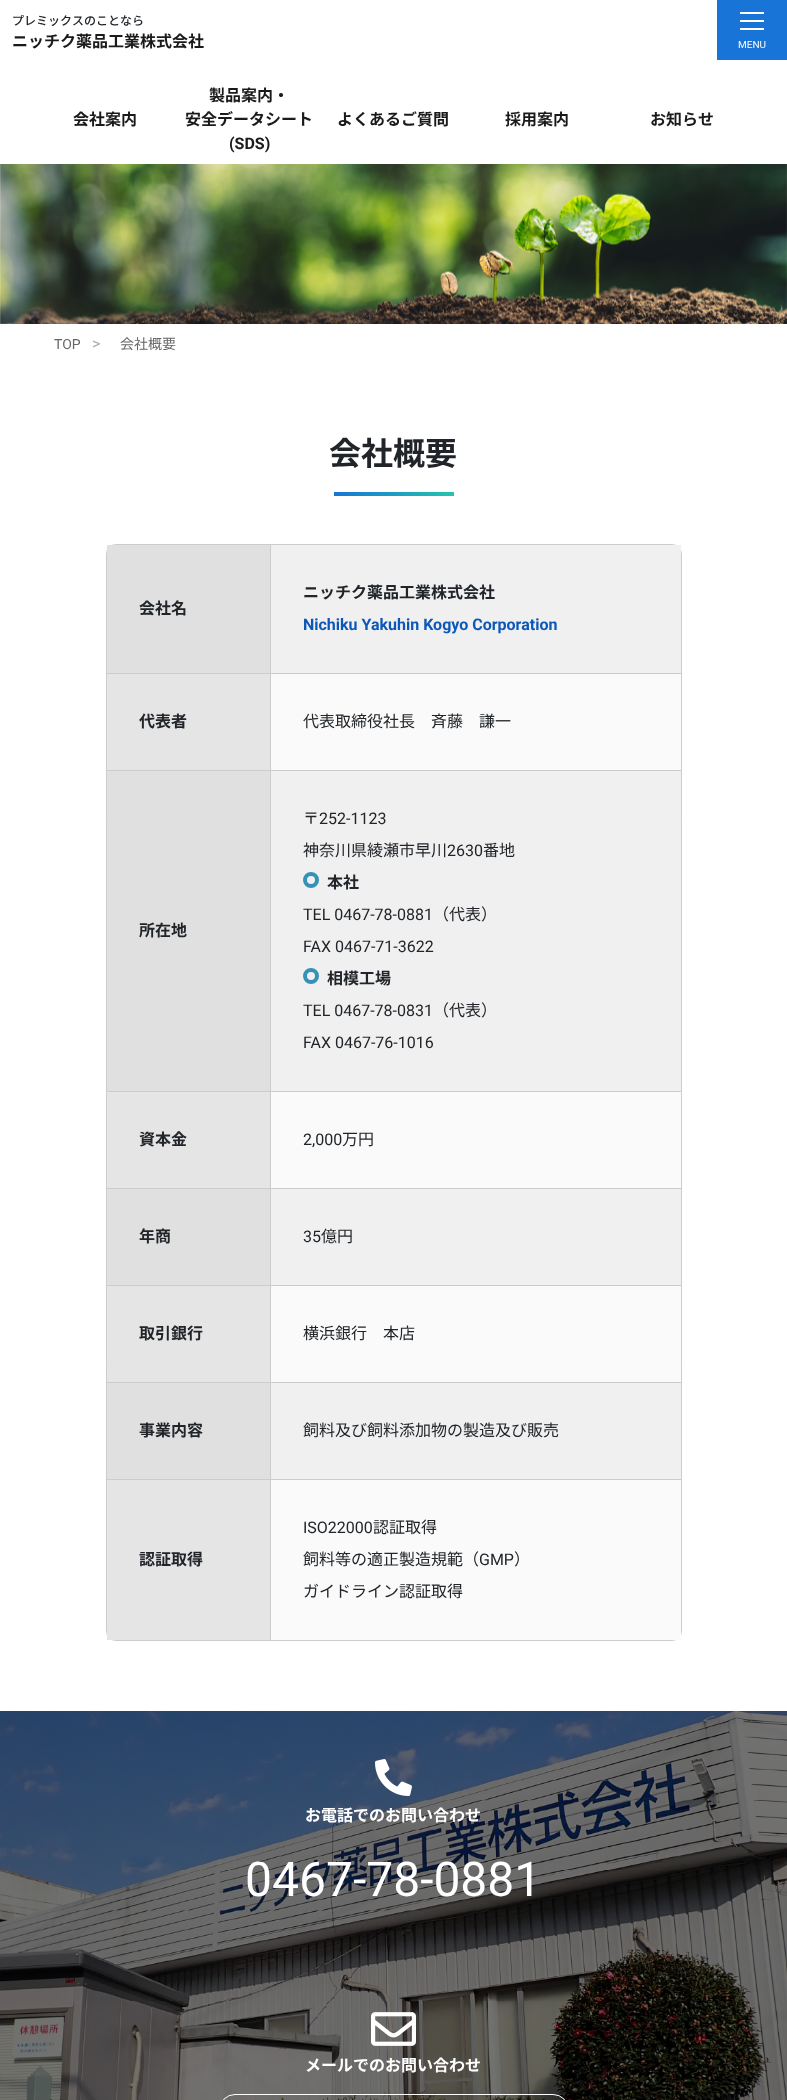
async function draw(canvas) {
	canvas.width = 787;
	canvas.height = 2100;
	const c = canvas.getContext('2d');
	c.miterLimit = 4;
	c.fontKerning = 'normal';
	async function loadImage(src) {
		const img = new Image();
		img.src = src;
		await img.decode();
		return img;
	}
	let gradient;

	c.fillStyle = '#fff';
	c.fillRect(0, 0, 787, 2100);
	c.font = '500 12px Noto Sans JP';
	c.fillStyle = '#212529';
	c.fillText('プレミックスのことなら', 12, 25);
	c.font = 'bold 16px Noto Sans JP';
	c.fillStyle = '#1a1a1a';
	c.fillText('ニッチク薬品工業株式会社', 12, 47);
	for (const [x, y, w, h, color] of [
		[717, 0, 70, 60, '#1874d6'],
		[740, 12, 24, 2, '#fff'],
		[740, 20, 24, 2, '#fff'],
		[740, 28, 24, 2, '#fff'],
	]) {
		c.fillStyle = color;
		c.fillRect(x, y, w, h);
	}
	c.font = '10px Roboto';
	c.fillText('MENU', 738, 48);
	c.font = 'bold 16px Noto Sans JP';
	c.fillStyle = '#1a1a1a';
	for (const [text, x, y] of [
		['会社案内', 73, 125],
		['製品案内・', 209, 101],
		['安全データシート', 185, 125],
	]) {
		c.fillText(text, x, y);
	}
	c.font = 'bold 16px Roboto';
	c.fillText('(SDS)', 229, 149);
	c.font = 'bold 16px Noto Sans JP';
	for (const [text, x, y] of [
		['よくあるご質問', 337, 125],
		['採用案内', 505, 125],
		['お知らせ', 650, 125],
	]) {
		c.fillText(text, x, y);
	}
	c.drawImage(await loadImage('img1.png'), 0, 164, 787, 160);
	c.font = '14px Roboto';
	c.fillStyle = '#666';
	c.fillText('TOP', 54, 349);
	c.font = '16px Roboto';
	c.fillStyle = '#aaa';
	c.fillText('>', 92, 349);
	c.font = '14px Noto Sans JP';
	c.fillStyle = '#666';
	c.fillText('会社概要', 120, 349);
	c.font = 'bold 32px Noto Sans JP';
	c.fillStyle = '#212529';
	c.fillText('会社概要', 329, 465);
	gradient = c.createLinearGradient(334, 494, 454, 494);
	gradient.addColorStop(0, '#1874d6');
	gradient.addColorStop(1, '#24c5ac');
	c.fillStyle = gradient;
	c.fillRect(334, 492, 120, 4);
	c.beginPath();
	c.roundRect(106.5, 544.5, 575, 1096, 9.5);
	c.strokeStyle = '#ccc';
	c.stroke();
	c.fillStyle = '#ccc';
	c.fillRect(106, 673, 575, 1);
	c.fillStyle = '#e0e0e0';
	c.fillRect(107, 545, 163, 128);
	c.font = 'bold 16px Noto Sans JP';
	c.fillStyle = '#212529';
	c.fillText('会社名', 139, 614);
	c.fillStyle = '#f0f0f0';
	c.fillRect(271, 545, 410, 128);
	c.fillStyle = '#212529';
	c.fillText('ニッチク薬品工業株式会社', 303, 598);
	c.font = 'bold 16px Roboto';
	c.fillStyle = '#0c57b8';
	c.fillText('Nichiku Yakuhin Kogyo Corporation', 303, 630);
	c.fillStyle = '#ccc';
	c.fillRect(106, 770, 575, 1);
	c.fillStyle = '#e5e5e5';
	c.fillRect(107, 674, 163, 96);
	c.font = 'bold 16px Noto Sans JP';
	c.fillStyle = '#212529';
	c.fillText('代表者', 139, 727);
	c.fillStyle = '#fafafa';
	c.fillRect(271, 674, 410, 96);
	c.font = '16px Noto Sans JP';
	c.fillStyle = '#212529';
	c.fillText('代表取締役社長　斉藤　謙一', 303, 727);
	c.fillStyle = '#ccc';
	c.fillRect(106, 1091, 575, 1);
	c.fillStyle = '#e0e0e0';
	c.fillRect(107, 771, 163, 320);
	c.font = 'bold 16px Noto Sans JP';
	c.fillStyle = '#212529';
	c.fillText('所在地', 139, 936);
	c.fillStyle = '#f0f0f0';
	c.fillRect(271, 771, 410, 320);
	c.font = '16px Noto Sans JP';
	c.fillStyle = '#212529';
	c.fillText('〒', 303, 824);
	c.font = '16px Roboto';
	c.fillText('252-1123', 319, 824);
	c.font = '16px Noto Sans JP';
	c.fillText('神奈川県綾瀬市早川', 303, 856);
	c.font = '16px Roboto';
	c.fillText('2630', 447, 856);
	c.font = '16px Noto Sans JP';
	c.fillText('番地', 483, 856);
	c.beginPath();
	c.arc(311, 880, 6, 0, 2 * Math.PI);
	c.strokeStyle = '#3392b8';
	c.lineWidth = 4;
	c.stroke();
	c.font = 'bold 16px Noto Sans JP';
	c.fillText('本社', 327, 888);
	c.font = '16px Roboto';
	c.fillText('TEL 0467-78-0881', 303, 920);
	c.font = '16px Noto Sans JP';
	c.fillText('（代表）', 433, 920);
	c.font = '16px Roboto';
	c.fillText('FAX 0467-71-3622', 303, 952);
	c.beginPath();
	c.arc(311, 976, 6, 0, 2 * Math.PI);
	c.stroke();
	c.font = 'bold 16px Noto Sans JP';
	c.fillText('相模工場', 327, 984);
	c.font = '16px Roboto';
	c.fillText('TEL 0467-78-0831', 303, 1016);
	c.font = '16px Noto Sans JP';
	c.fillText('（代表）', 433, 1016);
	c.font = '16px Roboto';
	c.fillText('FAX 0467-76-1016', 303, 1048);
	c.fillStyle = '#ccc';
	c.fillRect(106, 1188, 575, 1);
	c.fillStyle = '#e5e5e5';
	c.fillRect(107, 1092, 163, 96);
	c.font = 'bold 16px Noto Sans JP';
	c.fillStyle = '#212529';
	c.fillText('資本金', 139, 1145);
	c.fillStyle = '#fafafa';
	c.fillRect(271, 1092, 410, 96);
	c.font = '16px Roboto';
	c.fillStyle = '#212529';
	c.fillText('2,000', 303, 1145);
	c.font = '16px Noto Sans JP';
	c.fillText('万円', 342, 1145);
	c.fillStyle = '#ccc';
	c.fillRect(106, 1285, 575, 1);
	c.fillStyle = '#e0e0e0';
	c.fillRect(107, 1189, 163, 96);
	c.font = 'bold 16px Noto Sans JP';
	c.fillStyle = '#212529';
	c.fillText('年商', 139, 1242);
	c.fillStyle = '#f0f0f0';
	c.fillRect(271, 1189, 410, 96);
	c.font = '16px Roboto';
	c.fillStyle = '#212529';
	c.fillText('35', 303, 1242);
	c.font = '16px Noto Sans JP';
	c.fillText('億円', 321, 1242);
	c.fillStyle = '#ccc';
	c.fillRect(106, 1382, 575, 1);
	c.fillStyle = '#e5e5e5';
	c.fillRect(107, 1286, 163, 96);
	c.font = 'bold 16px Noto Sans JP';
	c.fillStyle = '#212529';
	c.fillText('取引銀行', 139, 1339);
	c.fillStyle = '#fafafa';
	c.fillRect(271, 1286, 410, 96);
	c.font = '16px Noto Sans JP';
	c.fillStyle = '#212529';
	c.fillText('横浜銀行　本店', 303, 1339);
	c.fillStyle = '#ccc';
	c.fillRect(106, 1479, 575, 1);
	c.fillStyle = '#e0e0e0';
	c.fillRect(107, 1383, 163, 96);
	c.font = 'bold 16px Noto Sans JP';
	c.fillStyle = '#212529';
	c.fillText('事業内容', 139, 1436);
	c.fillStyle = '#f0f0f0';
	c.fillRect(271, 1383, 410, 96);
	c.font = '16px Noto Sans JP';
	c.fillStyle = '#212529';
	c.fillText('飼料及び飼料添加物の製造及び販売', 303, 1436);
	c.fillStyle = '#e5e5e5';
	c.fillRect(107, 1480, 163, 160);
	c.fillStyle = '#ccc';
	c.fillRect(270, 545, 1, 1096);
	c.font = 'bold 16px Noto Sans JP';
	c.fillStyle = '#212529';
	c.fillText('認証取得', 139, 1565);
	c.fillStyle = '#fafafa';
	c.fillRect(271, 1480, 410, 160);
	c.font = '16px Roboto';
	c.fillStyle = '#212529';
	c.fillText('ISO22000', 303, 1533);
	c.font = '16px Noto Sans JP';
	c.fillText('認証取得', 373, 1533);
	c.fillText('飼料等の適正製造規範（', 303, 1565);
	c.font = '16px Roboto';
	c.fillText('GMP', 479, 1565);
	c.font = '16px Noto Sans JP';
	c.fillText('）', 514, 1565);
	c.fillText('ガイドライン認証取得', 303, 1597);
	c.drawImage(await loadImage('img2.png'), 0, 1711, 787, 389);
	c.drawImage(await loadImage('img3.png'), 375, 1759, 37, 37);
	c.font = 'bold 16px Noto Sans JP';
	c.fillStyle = '#fff';
	c.fillText('お電話でのお問い合わせ', 305, 1821);
	c.font = '48px Roboto';
	c.fillText('0467-78-0881', 245, 1896);
	c.drawImage(await loadImage('img4.png'), 371, 2012, 45, 34);
	c.font = 'bold 16px Noto Sans JP';
	c.fillText('メールでのお問い合わせ', 305, 2071);
	c.beginPath();
	c.roundRect(219.5, 2094.5, 349, 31, 24.5);
	c.strokeStyle = '#fff';
	c.lineWidth = 1;
	c.stroke();
}

draw(document.querySelector('canvas'));
